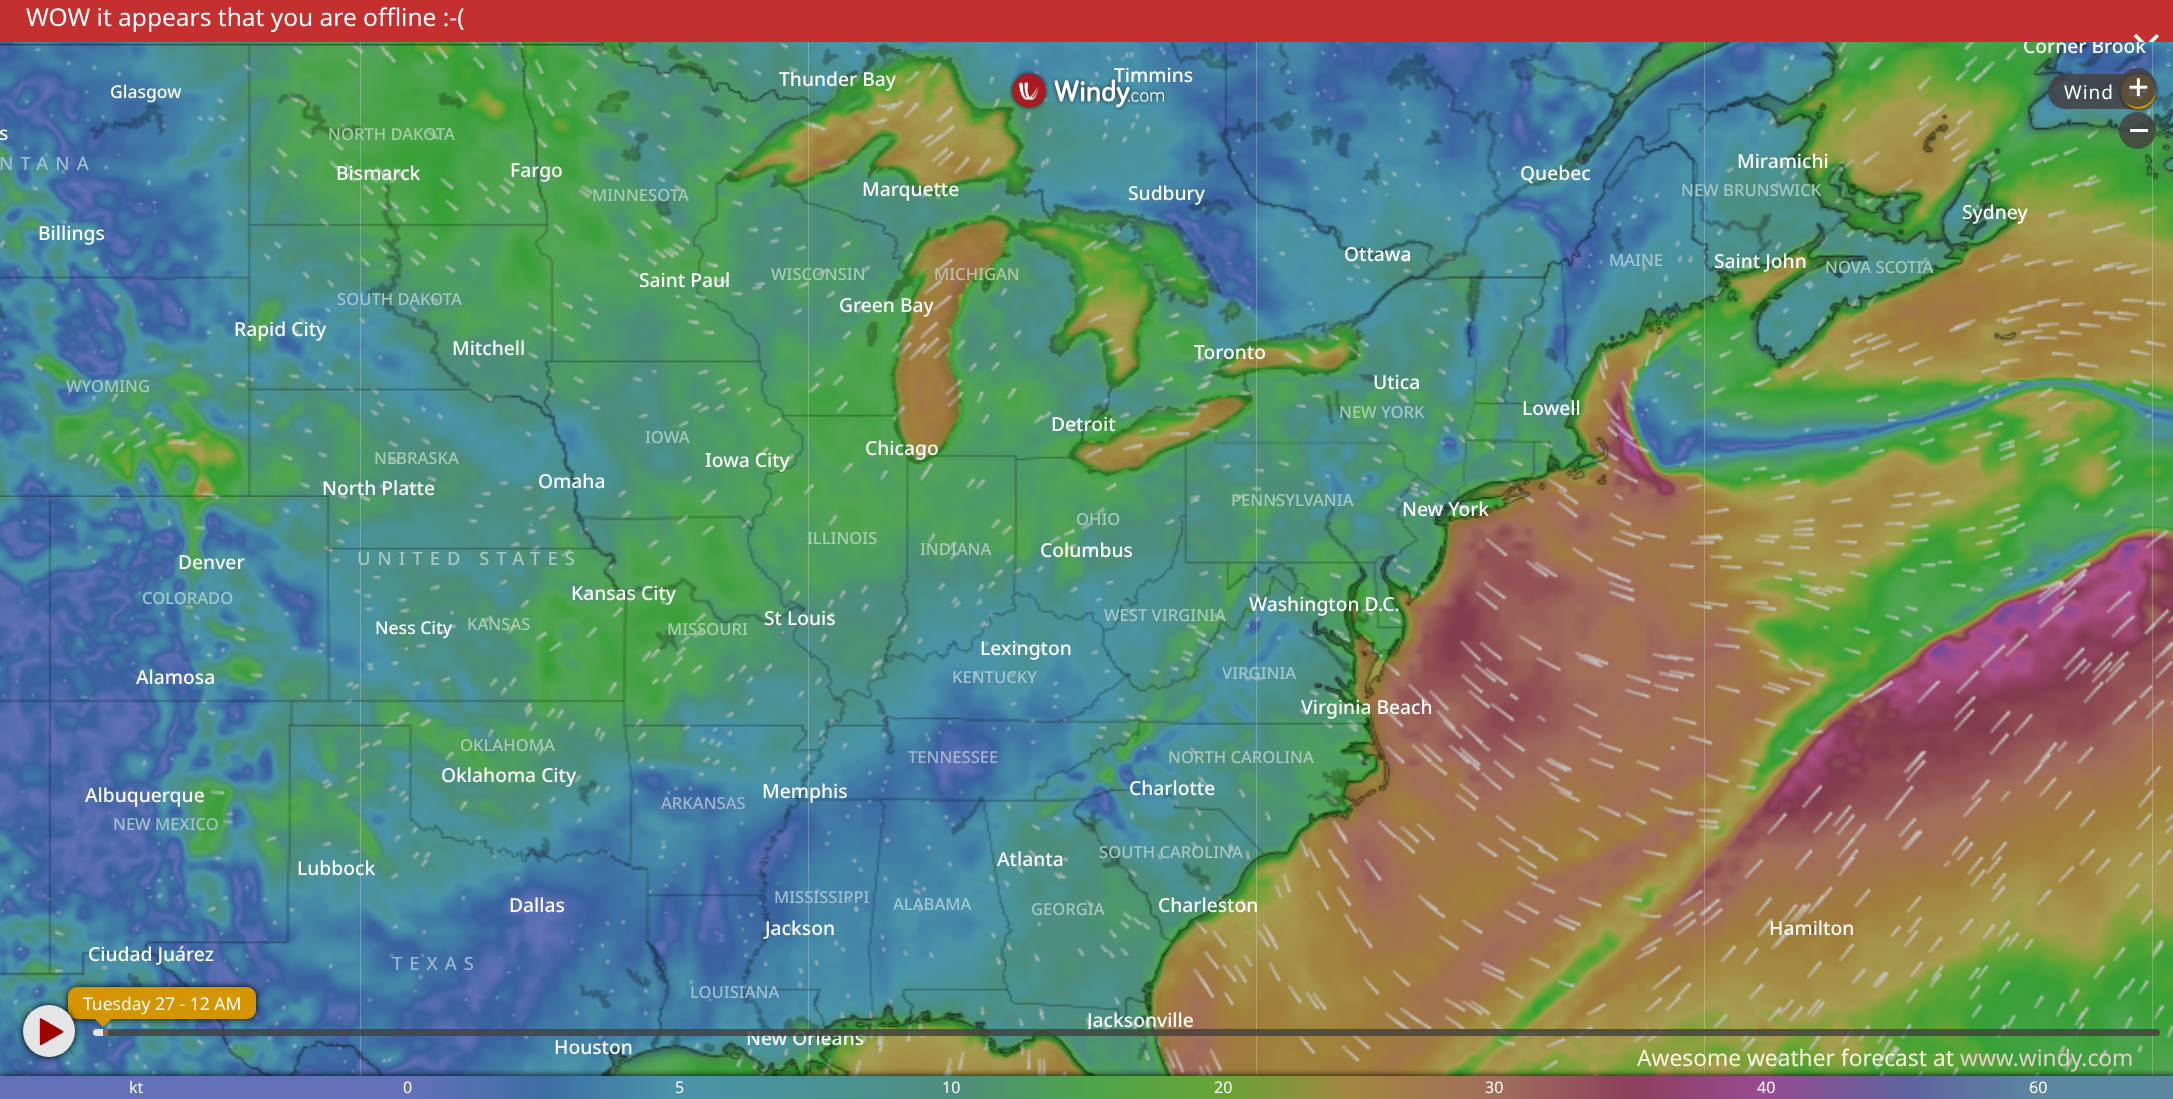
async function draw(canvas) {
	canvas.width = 2173;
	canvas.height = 1099;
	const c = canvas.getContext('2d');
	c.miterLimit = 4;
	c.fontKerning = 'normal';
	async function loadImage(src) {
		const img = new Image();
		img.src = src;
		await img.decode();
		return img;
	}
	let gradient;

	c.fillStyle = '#fff';
	c.fillRect(0, 0, 2173, 1099);
	c.drawImage(await loadImage('img4.png'), 808, 42, 449, 7);
	c.drawImage(await loadImage('img5.png'), 1256, 42, 449, 7);
	c.drawImage(await loadImage('img6.png'), 1704, 42, 449, 7);
	c.drawImage(await loadImage('img10.png'), 808, 49, 449, 448);
	c.drawImage(await loadImage('img11.png'), 1256, 49, 449, 448);
	c.drawImage(await loadImage('img12.png'), 1704, 49, 449, 448);
	c.drawImage(await loadImage('img3.png'), 360, 42, 449, 7);
	c.drawImage(await loadImage('img2.png'), 0, 42, 361, 7);
	c.drawImage(await loadImage('img7.png'), 2152, 42, 21, 7);
	c.drawImage(await loadImage('img9.png'), 360, 49, 449, 448);
	c.drawImage(await loadImage('img8.png'), 0, 49, 361, 448);
	c.drawImage(await loadImage('img13.png'), 2152, 49, 21, 448);
	c.drawImage(await loadImage('img16.png'), 808, 497, 449, 448);
	c.drawImage(await loadImage('img15.png'), 360, 497, 449, 448);
	c.drawImage(await loadImage('img14.png'), 0, 497, 361, 448);
	c.drawImage(await loadImage('img17.png'), 1256, 497, 449, 448);
	c.drawImage(await loadImage('img18.png'), 1704, 497, 449, 448);
	c.drawImage(await loadImage('img19.png'), 2152, 497, 21, 448);
	c.drawImage(await loadImage('img22.png'), 808, 945, 449, 131);
	c.drawImage(await loadImage('img21.png'), 360, 945, 449, 131);
	c.drawImage(await loadImage('img20.png'), 0, 945, 361, 131);
	c.drawImage(await loadImage('img23.png'), 1256, 945, 449, 131);
	c.drawImage(await loadImage('img24.png'), 1704, 945, 449, 131);
	c.drawImage(await loadImage('img25.png'), 2152, 945, 21, 131);
	c.drawImage(await loadImage('img26.png'), 0, 42, 2173, 1034);
	c.drawImage(await loadImage('img31.png'), 1705, 42, 411, 7);
	c.drawImage(await loadImage('img34.png'), 808, 49, 449, 448);
	c.drawImage(await loadImage('img35.png'), 1256, 49, 449, 448);
	c.drawImage(await loadImage('img36.png'), 1704, 49, 449, 322);
	c.font = '500 19.25px Noto Sans';
	c.fillText('Corner Brook', 2023, 53);
	c.fillStyle = '#c42f2f';
	c.fillRect(0, 0, 2173, 42);
	c.font = '24.5px Noto Sans';
	c.fillStyle = '#fff';
	c.fillText('WOW it appears that you are offline :-(', 26, 26);
	c.drawImage(await loadImage('img1.png'), 2133, 33, 26, 9);
	c.drawImage(await loadImage('img33.png'), 360, 49, 449, 448);
	c.drawImage(await loadImage('img32.png'), 0, 49, 361, 448);
	c.font = '500 17.5px Noto Sans';
	c.fillText('Glasgow', 110, 98);
	c.font = '500 19.25px Noto Sans';
	c.fillText('s', -1, 140);
	c.letterSpacing = '7px';
	c.font = '500 18.4px Noto Sans';
	c.fillStyle = '#a1bfd3';
	c.fillText('NTANA', -1, 170);
	c.letterSpacing = '0px';
	c.font = '500 19.25px Noto Sans';
	c.fillStyle = '#fff';
	c.fillText('Billings', 38, 240);
	c.fillText('Rapid City', 234, 336);
	c.font = '500 16.6px Noto Sans';
	c.fillStyle = '#a6c8c0';
	c.fillText('WYOMING', 66, 392);
	c.fillStyle = '#a4cea5';
	c.fillText('NORTH DAKOTA', 328, 140);
	c.font = '500 19.25px Noto Sans';
	c.fillStyle = '#fff';
	c.fillText('Bismarck', 336, 180);
	c.fillText('Fargo', 510, 177);
	c.font = '500 16.6px Noto Sans';
	c.fillStyle = '#a7cbb6';
	c.fillText('MINNESOTA', 592, 201);
	c.font = '500 19.25px Noto Sans';
	c.fillStyle = '#fff';
	c.fillText('Saint Paul', 639, 287);
	c.font = '500 16.6px Noto Sans';
	c.fillStyle = '#a6c8c0';
	c.fillText('SOUTH DAKOTA', 337, 305);
	c.font = '500 19.25px Noto Sans';
	c.fillStyle = '#fff';
	c.fillText('Mitchell', 452, 355);
	c.font = '500 16.6px Noto Sans';
	c.fillStyle = '#a6c8c0';
	c.fillText('IOWA', 645, 443);
	c.fillStyle = '#a7cbb6';
	c.fillText('NEBRASKA', 374, 464);
	c.font = '500 19.25px Noto Sans';
	c.fillStyle = '#fff';
	for (const [text, x, y] of [
		['Iowa City', 705, 467],
		['North Platte', 322, 495],
		['Omaha', 538, 488],
		['Thunder Bay', 779, 86],
		['Timmins', 1114, 82],
		['Marquette', 862, 196],
		['Sudbury', 1128, 200],
	]) {
		c.fillText(text, x, y);
	}
	c.font = '500 16.6px Noto Sans';
	c.fillStyle = '#a7cbb6';
	c.fillText('WISCONSIN', 771, 280);
	c.fillStyle = '#bbc2a4';
	c.fillText('MICHIGAN', 934, 280);
	c.font = '500 19.25px Noto Sans';
	c.fillStyle = '#fff';
	for (const [text, x, y] of [
		['Green Bay', 839, 312],
		['Toronto', 1194, 359],
		['Detroit', 1051, 431],
		['Chicago', 865, 455],
		['Quebec', 1520, 180],
		['Ottawa', 1344, 261],
	]) {
		c.fillText(text, x, y);
	}
	c.font = '500 16.6px Noto Sans';
	c.fillStyle = '#a4c6d1';
	c.fillText('MAINE', 1609, 266);
	c.font = '500 19.25px Noto Sans';
	c.fillStyle = '#fff';
	c.fillText('Utica', 1373, 389);
	c.font = '500 16.6px Noto Sans';
	c.fillStyle = '#a7cbb6';
	c.fillText('NEW YORK', 1339, 418);
	c.font = '500 19.25px Noto Sans';
	c.fillStyle = '#fff';
	c.fillText('Lowell', 1522, 415);
	c.fillText('Miramichi', 1737, 168);
	c.font = '500 16.6px Noto Sans';
	c.fillStyle = '#a6c8c0';
	c.fillText('NEW BRUNSWICK', 1681, 196);
	c.font = '500 19.25px Noto Sans';
	c.fillStyle = '#fff';
	c.fillText('Sydney', 1962, 219);
	c.fillText('Saint John', 1714, 268);
	c.font = '500 16.6px Noto Sans';
	c.fillStyle = '#a6c8c0';
	c.fillText('NOVA SCOTIA', 1825, 273);
	c.drawImage(await loadImage('img40.png'), 808, 497, 449, 448);
	c.drawImage(await loadImage('img39.png'), 360, 497, 449, 448);
	c.drawImage(await loadImage('img38.png'), 0, 497, 361, 448);
	c.font = '500 19.25px Noto Sans';
	c.fillStyle = '#fff';
	c.fillText('Denver', 178, 569);
	c.font = '500 16.6px Noto Sans';
	c.fillStyle = '#a4c6d1';
	c.fillText('COLORADO', 142, 604);
	c.font = '500 19.25px Noto Sans';
	c.fillStyle = '#fff';
	c.fillText('Alamosa', 136, 684);
	c.fillText('Albuquerque', 85, 802);
	c.font = '500 16.6px Noto Sans';
	c.fillStyle = '#a4c0c9';
	c.fillText('NEW MEXICO', 113, 830);
	c.font = '500 19.25px Noto Sans';
	c.fillStyle = '#fff';
	c.fillText('Lubbock', 297, 875);
	c.letterSpacing = '7px';
	c.font = '500 18.4px Noto Sans';
	c.fillStyle = '#a6c8c0';
	c.fillText('UNITED STATES', 357, 565);
	c.letterSpacing = '0px';
	c.font = '500 19.25px Noto Sans';
	c.fillStyle = '#fff';
	c.fillText('Kansas City', 571, 600);
	c.font = '500 17.5px Noto Sans';
	c.fillText('Ness City', 375, 634);
	c.font = '500 16.6px Noto Sans';
	c.fillStyle = '#a7cbb6';
	c.fillText('KANSAS', 467, 630);
	c.fillStyle = '#a7cfae';
	c.fillText('MISSOURI', 667, 635);
	c.font = '500 19.25px Noto Sans';
	c.fillStyle = '#fff';
	c.fillText('St Louis', 764, 625);
	c.font = '500 16.6px Noto Sans';
	c.fillStyle = '#a7cbb6';
	c.fillText('OKLAHOMA', 460, 751);
	c.font = '500 19.25px Noto Sans';
	c.fillStyle = '#fff';
	c.fillText('Oklahoma City', 441, 782);
	c.font = '500 16.6px Noto Sans';
	c.fillStyle = '#a4b5d4';
	c.fillText('ARKANSAS', 661, 809);
	c.font = '500 19.25px Noto Sans';
	c.fillStyle = '#fff';
	for (const [text, x, y] of [
		['Memphis', 762, 798],
		['Dallas', 509, 912],
		['Jackson', 765, 935],
	]) {
		c.fillText(text, x, y);
	}
	c.font = '500 16.6px Noto Sans';
	c.fillStyle = '#a7cbb6';
	c.fillText('OHIO', 1076, 525);
	c.fillStyle = '#a7cfae';
	c.fillText('ILLINOIS', 807, 544);
	c.fillStyle = '#a7cbb6';
	c.fillText('INDIANA', 920, 555);
	c.font = '500 19.25px Noto Sans';
	c.fillStyle = '#fff';
	c.fillText('Columbus', 1040, 557);
	c.font = '500 16.6px Noto Sans';
	c.fillStyle = '#a6c8c0';
	c.fillText('WEST VIRGINIA', 1104, 621);
	c.font = '500 19.25px Noto Sans';
	c.fillStyle = '#fff';
	c.fillText('Lexington', 980, 655);
	c.font = '500 16.6px Noto Sans';
	c.fillStyle = '#a4c6d1';
	c.fillText('KENTUCKY', 952, 683);
	c.fillStyle = '#a4b5d4';
	c.fillText('TENNESSEE', 908, 763);
	c.drawImage(await loadImage('img41.png'), 1256, 497, 276, 377);
	c.fillStyle = '#a6c8c0';
	c.fillText('NORTH CAROLINA', 1168, 763);
	c.font = '500 19.25px Noto Sans';
	c.fillStyle = '#fff';
	c.fillText('Charlotte', 1129, 795);
	c.fillText('Atlanta', 997, 866);
	c.font = '500 16.6px Noto Sans';
	c.fillStyle = '#a6c8c0';
	c.fillText('SOUTH CAROLINA', 1099, 858);
	c.fillStyle = '#a1bfd3';
	c.fillText('MISSISSIPPI', 774, 903);
	c.fillStyle = '#a4c6d1';
	c.fillText('ALABAMA', 893, 910);
	c.fillStyle = '#a6c8c0';
	c.fillText('GEORGIA', 1031, 915);
	c.font = '500 19.25px Noto Sans';
	c.fillStyle = '#fff';
	c.fillText('Charleston', 1158, 912);
	c.font = '500 16.6px Noto Sans';
	c.fillStyle = '#a6c8c0';
	c.fillText('PENNSYLVANIA', 1231, 506);
	c.font = '500 19.25px Noto Sans';
	c.fillStyle = '#fff';
	c.fillText('New York', 1402, 516);
	c.fillText('Washington D.C.', 1249, 611);
	c.font = '500 16.6px Noto Sans';
	c.fillStyle = '#a4c6d1';
	c.fillText('VIRGINIA', 1222, 679);
	c.font = '500 19.25px Noto Sans';
	c.fillStyle = '#fff';
	c.fillText('Virginia Beach', 1301, 714);
	c.drawImage(await loadImage('img42.png'), 1806, 925, 12, 10);
	c.fillText('Hamilton', 1769, 935);
	c.drawImage(await loadImage('img43.png'), 0, 945, 361, 131);
	c.fillText('Ciudad Juárez', 88, 961);
	c.drawImage(await loadImage('img44.png'), 361, 945, 448, 131);
	c.letterSpacing = '7px';
	c.font = '500 18.4px Noto Sans';
	c.fillStyle = '#9eb5d1';
	c.fillText('TEXAS', 392, 970);
	c.letterSpacing = '0px';
	c.font = '500 16.6px Noto Sans';
	c.fillStyle = '#a1bfd3';
	c.fillText('LOUISIANA', 690, 998);
	c.drawImage(await loadImage('img45.png'), 809, 945, 375, 131);
	c.font = '500 19.25px Noto Sans';
	c.fillStyle = '#fff';
	for (const [text, x, y] of [
		['New Orleans', 746, 1045],
		['Houston', 554, 1054],
		['Jacksonville', 1087, 1027],
	]) {
		c.fillText(text, x, y);
	}
	c.drawImage(await loadImage('img27.png'), 0, 42, 361, 7);
	c.drawImage(await loadImage('img28.png'), 361, 42, 318, 7);
	c.drawImage(await loadImage('img29.png'), 826, 42, 402, 7);
	c.drawImage(await loadImage('img30.png'), 1278, 42, 427, 7);
	c.drawImage(await loadImage('img37.png'), 2153, 91, 20, 90);
	c.drawImage(await loadImage('img46.png'), 1009, 70, 41, 41);
	c.drawImage(await loadImage('img47.png'), 1051, 76, 117, 35);
	c.fillStyle = '#444141d6';
	c.beginPath();
	c.roundRect(2048, 74, 108, 35, 17.5);
	c.fill();
	c.letterSpacing = '1px';
	c.font = '19px Noto Sans';
	c.fillStyle = '#fff';
	c.fillText('Wind', 2064, 99);
	c.fillStyle = '#000';
	c.filter = 'blur(2px)';
	c.beginPath();
	c.roundRect(2121, 74, 35, 35, 17.5);
	c.fill();
	c.filter = 'none';
	c.fillStyle = '#d49500';
	c.beginPath();
	c.arc(2138.5, 91.5, 17.5, 0, 2 * Math.PI);
	c.fill();
	c.drawImage(await loadImage('img48.png'), 2128, 88, 20, 12);
	c.fillStyle = '#444141d6';
	c.beginPath();
	c.roundRect(2119, 68, 37, 39, 18.5);
	c.fill();
	c.drawImage(await loadImage('img49.png'), 2129, 78, 19, 19);
	c.beginPath();
	c.arc(2137.5, 130.5, 18.5, 0, 2 * Math.PI);
	c.fill();
	c.fillStyle = '#fff';
	c.fillRect(2130, 129, 18, 3);
	c.fillStyle = '#000';
	c.filter = 'blur(3.5px)';
	c.beginPath();
	c.roundRect(68, 987, 188, 32, 9);
	c.fill();
	c.filter = 'none';
	c.fillStyle = '#d49500';
	c.beginPath();
	c.roundRect(68, 987, 188, 32, 9);
	c.fill();
	c.fillStyle = '#000';
	c.filter = 'blur(3.5px)';
	c.beginPath();
	c.roundRect(23, 1005, 52, 52, 26);
	c.fill();
	c.filter = 'none';
	c.fillStyle = '#e5e5e5';
	c.beginPath();
	c.arc(49, 1031, 26, 0, 2 * Math.PI);
	c.fill();
	c.drawImage(await loadImage('img50.png'), 39, 1018, 25, 28);
	c.letterSpacing = '0px';
	c.font = '17.5px Noto Sans';
	c.fillStyle = '#fff';
	c.fillText('Tuesday 27 - 12 AM', 83, 1010);
	c.fillStyle = '#d49500';
	c.beginPath();
	c.moveTo(94.5, 1018.5);
	c.lineTo(112, 1018.5);
	c.lineTo(103, 1027);
	c.closePath();
	c.fill();
	c.fillStyle = '#444141d6';
	c.beginPath();
	c.roundRect(93, 1029, 2067, 7, 3.5);
	c.fill();
	c.fillStyle = '#e5e5e5';
	c.beginPath();
	c.roundRect(93, 1029, 10, 7, [3.5, 0, 0, 3.5]);
	c.fill();
	c.fillStyle = '#946051';
	c.fillRect(103, 1029, 5, 7);
	c.fillStyle = '#000';
	c.filter = 'blur(3.5px)';
	c.beginPath();
	c.rect(0, 1076, 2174, 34);
	c.fill();
	c.filter = 'none';
	c.font = '22.75px Noto Sans';
	c.fillStyle = '#fff3e1';
	c.fillText('Awesome weather forecast at', 1637, 1066);
	c.fillStyle = '#e6cece';
	c.fillText('www.windy.com', 1960, 1066);
	gradient = c.createLinearGradient(0, 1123, 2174, 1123);
	gradient.addColorStop(0, '#6271b8');
	gradient.addColorStop(0.19, '#6271b8');
	gradient.addColorStop(0.25, '#3d6ea3');
	gradient.addColorStop(0.31, '#4a94aa');
	gradient.addColorStop(0.38, '#4a9294');
	gradient.addColorStop(0.44, '#4d8e7c');
	gradient.addColorStop(0.5, '#4ca44c');
	gradient.addColorStop(0.56, '#67a436');
	gradient.addColorStop(0.62, '#a28740');
	gradient.addColorStop(0.69, '#a26d5c');
	gradient.addColorStop(0.75, '#8d3f5c');
	gradient.addColorStop(0.81, '#974b91');
	gradient.addColorStop(0.88, '#5f64a0');
	gradient.addColorStop(0.94, '#5b88a1');
	gradient.addColorStop(1, '#5b88a1');
	c.fillStyle = gradient;
	c.fillRect(0, 1076, 2173, 23);
	c.font = '16px Noto Sans';
	c.fillStyle = '#fff';
	for (const [text, x, y] of [
		['kt', 129, 1093],
		['0', 403, 1093],
		['5', 675, 1093],
		['10', 942, 1093],
		['20', 1214, 1093],
		['30', 1485, 1093],
		['40', 1757, 1093],
		['60', 2029, 1093],
	]) {
		c.fillText(text, x, y);
	}
}

draw(document.querySelector('canvas'));
